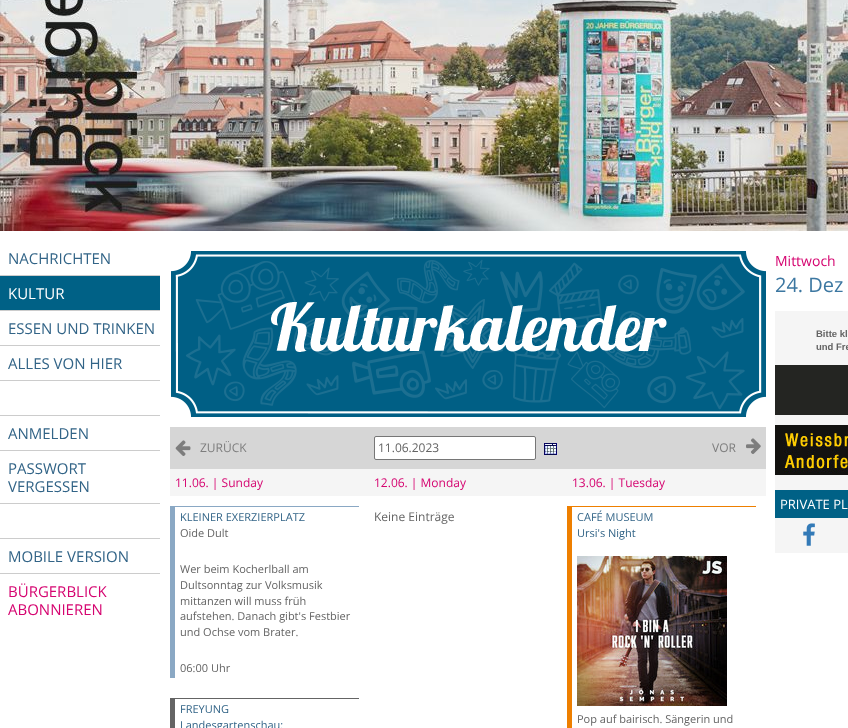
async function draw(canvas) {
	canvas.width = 848;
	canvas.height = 728;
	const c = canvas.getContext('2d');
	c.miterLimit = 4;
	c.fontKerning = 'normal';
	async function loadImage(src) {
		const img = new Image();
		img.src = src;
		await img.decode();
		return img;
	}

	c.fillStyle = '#fff';
	c.fillRect(0, 0, 848, 728);
	c.drawImage(await loadImage('img1.png'), 0, 0, 848, 231);
	c.fillStyle = '#ccc';
	c.fillRect(0, 275, 160, 1);
	c.font = '15px Open Sans';
	c.fillStyle = '#326487';
	c.fillText('NACHRICHTEN', 8, 264);
	c.fillStyle = '#006186';
	c.fillRect(0, 276, 160, 34);
	c.fillStyle = '#ccc';
	c.fillRect(0, 310, 160, 1);
	c.fillStyle = '#fff';
	c.fillText('KULTUR', 8, 299);
	c.fillStyle = '#ccc';
	c.fillRect(0, 345, 160, 1);
	c.fillStyle = '#326487';
	c.fillText('ESSEN UND TRINKEN', 8, 334);
	c.fillStyle = '#ccc';
	c.fillRect(0, 380, 160, 1);
	c.fillStyle = '#326487';
	c.fillText('ALLES VON HIER', 8, 369);
	c.fillStyle = '#ccc';
	c.fillRect(0, 415, 160, 1);
	c.fillRect(0, 450, 160, 1);
	c.fillStyle = '#326487';
	c.fillText('ANMELDEN', 8, 439);
	c.fillStyle = '#ccc';
	c.fillRect(0, 503, 160, 1);
	c.fillStyle = '#326487';
	c.fillText('PASSWORT', 8, 474);
	c.fillText('VERGESSEN', 8, 492);
	c.fillStyle = '#ccc';
	c.fillRect(0, 538, 160, 1);
	c.fillRect(0, 573, 160, 1);
	c.fillStyle = '#326487';
	c.fillText('MOBILE VERSION', 8, 562);
	c.fillStyle = '#d50470';
	c.fillText('BÜRGERBLICK', 8, 597);
	c.fillText('ABONNIEREN', 8, 615);
	c.fillStyle = '#f5f5f5';
	c.fillRect(775, 311, 73, 242);
	c.font = '14px Open Sans';
	c.fillStyle = '#d50470';
	c.fillText('Mittwoch', 775, 266);
	c.font = '20px Open Sans';
	c.fillStyle = '#3c77a1';
	c.fillText('24. Dez', 775, 292);
	c.font = 'bold 9.5px Liberation Sans';
	c.fillStyle = '#646464';
	c.fillText('Bitte kli', 816, 337);
	c.fillText('und Fre', 816, 350);
	c.fillStyle = '#242522';
	c.fillRect(775, 365, 73, 50);
	c.drawImage(await loadImage('img2.png'), 775, 425, 73, 50);
	c.fillStyle = '#006186';
	c.fillRect(775, 490, 73, 28);
	c.font = '13px Open Sans';
	c.fillStyle = '#fff';
	c.fillText('PRIVATE PL', 780, 509);
	c.drawImage(await loadImage('img3.png'), 803, 523, 12, 23);
	c.drawImage(await loadImage('img4.png'), 171, 251, 595, 166);
	c.fillStyle = '#d6d6d6';
	c.fillRect(170, 427, 596, 42);
	c.drawImage(await loadImage('img5.png'), 175, 440, 16, 16);
	c.font = '12px Open Sans';
	c.fillStyle = '#7d7d7d';
	c.fillText('ZURÜCK', 200, 452);
	c.fillStyle = '#fff';
	c.beginPath();
	c.roundRect(374.5, 436.5, 161, 23, 1.5);
	c.fill();
	c.strokeStyle = '#767676';
	c.stroke();
	c.fillStyle = '#646464';
	c.fillText('11.06.2023', 378, 452);
	c.drawImage(await loadImage('img6.png'), 544, 443, 13, 12);
	c.fillStyle = '#7d7d7d';
	c.fillText('VOR', 712, 452);
	c.drawImage(await loadImage('img7.png'), 746, 438, 15, 16);
	c.fillStyle = '#f5f5f5';
	c.fillRect(170, 469, 596, 27);
	c.fillStyle = '#d50470';
	c.fillText('11.06. | Sunday', 175, 487);
	c.fillStyle = '#8aa8c4';
	c.fillRect(170, 506, 189, 1);
	c.fillRect(170, 506, 5, 172);
	c.font = '11px Open Sans';
	c.fillStyle = '#326487';
	c.fillText('KLEINER EXERZIERPLATZ', 180, 521);
	c.fillStyle = '#646464';
	for (const [text, x, y] of [
		['Oide Dult', 180, 537],
		['Wer beim Kocherlball am', 180, 573],
		['Dultsonntag zur Volksmusik', 180, 589],
		['mittanzen will muss früh', 180, 605],
		['aufstehen. Danach gibt\'s Festbier', 180, 620],
		['und Ochse vom Brater.', 180, 636],
		['06:00 Uhr', 180, 672],
	]) {
		c.fillText(text, x, y);
	}
	c.fillRect(170, 698, 189, 1);
	c.fillRect(170, 698, 5, 30);
	c.fillStyle = '#326487';
	c.fillText('FREYUNG', 180, 713);
	c.fillText('Landesgartenschau:', 180, 729);
	c.font = '12px Open Sans';
	c.fillStyle = '#d50470';
	c.fillText('12.06. | Monday', 374, 487);
	c.fillStyle = '#646464';
	c.fillText('Keine Einträge', 374, 521);
	c.fillStyle = '#d50470';
	c.fillText('13.06. | Tuesday', 572, 487);
	c.fillStyle = '#ee7f00';
	c.fillRect(567, 506, 189, 1);
	c.fillRect(567, 506, 5, 222);
	c.font = '11px Open Sans';
	c.fillStyle = '#326487';
	c.fillText('CAFÉ MUSEUM', 577, 521);
	c.fillText('Ursi\'s Night', 577, 537);
	c.drawImage(await loadImage('img8.png'), 577, 556, 150, 150);
	c.fillStyle = '#646464';
	c.fillText('Pop auf bairisch. Sängerin und', 577, 723);
}

draw(document.querySelector('canvas'));
